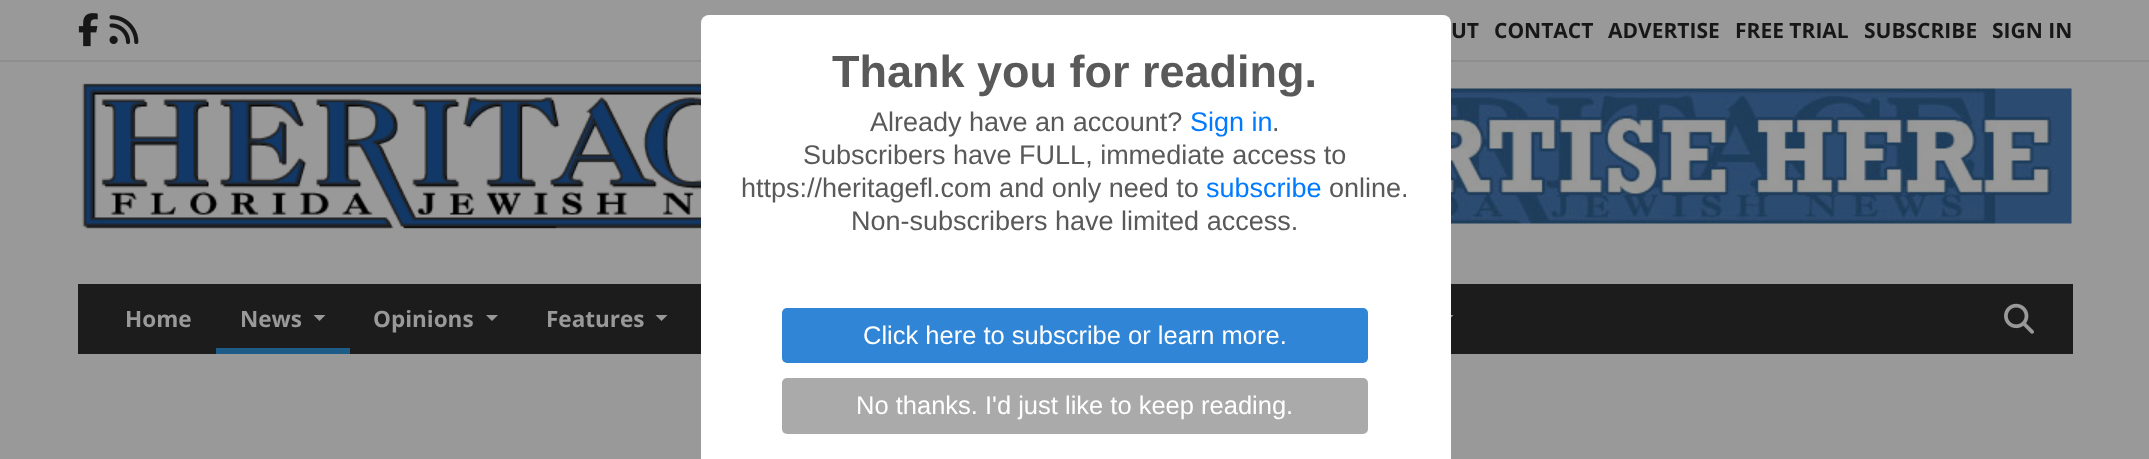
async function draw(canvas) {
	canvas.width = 2149;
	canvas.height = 459;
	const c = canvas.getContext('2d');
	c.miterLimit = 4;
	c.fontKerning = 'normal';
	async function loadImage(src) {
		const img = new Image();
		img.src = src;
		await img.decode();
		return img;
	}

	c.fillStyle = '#999';
	c.fillRect(0, 0, 2149, 459);
	c.fillStyle = '#8e8e8e';
	c.fillRect(0, 60, 2149, 2);
	c.drawImage(await loadImage('img1.png'), 78, 13, 20, 34);
	c.drawImage(await loadImage('img2.png'), 109, 15, 30, 30);
	c.font = 'bold 21px Open Sans';
	c.fillStyle = '#171717';
	for (const [text, x, y] of [
		['UT', 1451, 38],
		['CONTACT', 1494, 38],
		['ADVERTISE', 1608, 38],
		['FREE TRIAL', 1735, 38],
		['SUBSCRIBE', 1864, 38],
		['SIGN IN', 1992, 38],
	]) {
		c.fillText(text, x, y);
	}
	c.fillStyle = '#1d1c1c';
	c.fillRect(78, 284, 1995, 70);
	c.fillStyle = '#999';
	c.beginPath();
	c.moveTo(1441.5, 315);
	c.lineTo(1453.5, 315);
	c.lineTo(1447.5, 321);
	c.closePath();
	c.fill();
	c.fillStyle = '#fff';
	c.beginPath();
	c.roundRect(701, 15, 750, 444, [8, 8, 0, 0]);
	c.fill();
	c.font = 'bold 45px Liberation Sans';
	c.fillStyle = '#595959';
	c.fillText('Thank you for reading.', 832, 87);
	c.font = '27px Liberation Sans';
	c.fillText('Already have an account?', 870, 131);
	c.fillStyle = '#007bff';
	c.fillText('Sign in', 1190, 131);
	c.fillStyle = '#595959';
	for (const [text, x, y] of [
		['.', 1272, 131],
		['Subscribers have FULL, immediate access to', 803, 164],
		['https://heritagefl.com and only need to', 741, 197],
	]) {
		c.fillText(text, x, y);
	}
	c.fillStyle = '#007bff';
	c.fillText('subscribe', 1206, 197);
	c.fillStyle = '#595959';
	c.fillText('online.', 1329, 197);
	c.fillText('Non-subscribers have limited access.', 851, 230);
	c.fillStyle = '#3085d6';
	c.beginPath();
	c.roundRect(782, 308, 586, 55, 5);
	c.fill();
	c.font = '25.5px Liberation Sans';
	c.fillStyle = '#fff';
	c.fillText('Click here to subscribe or learn more.', 863, 344);
	c.fillStyle = '#aaa';
	c.beginPath();
	c.roundRect(782, 378, 586, 56, 5);
	c.fill();
	c.fillStyle = '#fff';
	c.fillText('No thanks. I\'d just like to keep reading.', 856, 414);
	c.drawImage(await loadImage('img3.png'), 82, 83, 619, 146);
	c.drawImage(await loadImage('img4.png'), 1451, 88, 621, 136);
	c.font = 'bold 22.5px Open Sans';
	c.fillStyle = '#999';
	c.fillText('Home', 125, 327);
	c.fillText('News', 240, 327);
	c.beginPath();
	c.moveTo(313.5, 315);
	c.lineTo(325.5, 315);
	c.lineTo(319.5, 321);
	c.closePath();
	c.fill();
	c.fillStyle = '#1c5c86';
	c.fillRect(216, 348, 134, 6);
	c.fillStyle = '#999';
	c.fillText('Opinions', 373, 327);
	c.beginPath();
	c.moveTo(486, 315);
	c.lineTo(498, 315);
	c.lineTo(492, 321);
	c.closePath();
	c.fill();
	c.fillText('Features', 546, 327);
	c.beginPath();
	c.moveTo(655.5, 315);
	c.lineTo(667.5, 315);
	c.lineTo(661.5, 321);
	c.closePath();
	c.fill();
	c.drawImage(await loadImage('img5.png'), 2004, 303, 30, 31);
}

draw(document.querySelector('canvas'));
